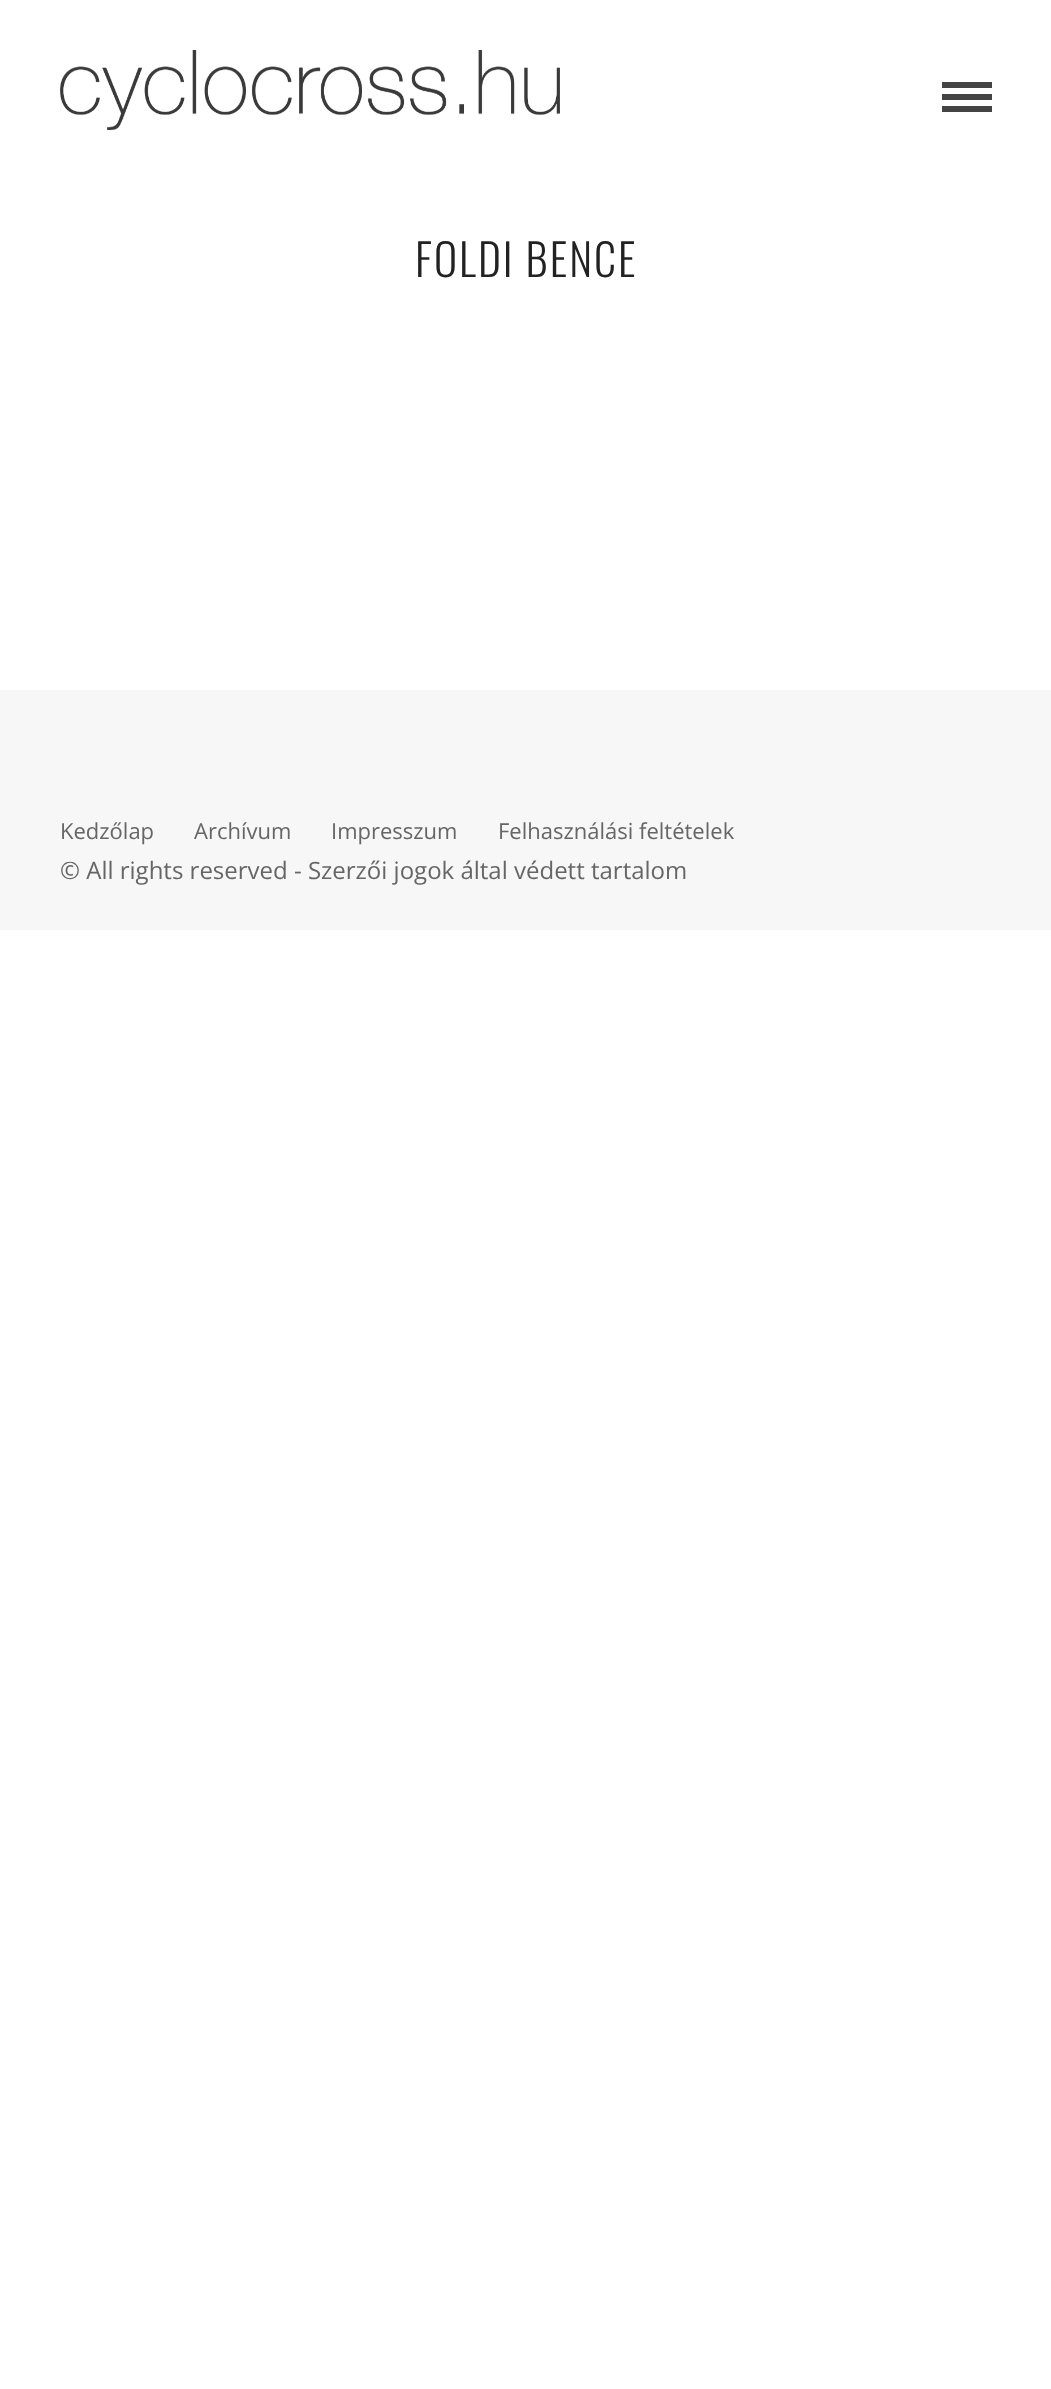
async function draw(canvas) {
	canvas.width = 1051;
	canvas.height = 2389;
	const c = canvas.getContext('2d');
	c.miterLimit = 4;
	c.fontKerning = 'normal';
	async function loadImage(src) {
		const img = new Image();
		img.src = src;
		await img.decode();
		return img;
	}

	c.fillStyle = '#fff';
	c.fillRect(0, 0, 1051, 2389);
	c.drawImage(await loadImage('img1.png'), 60, 50, 500, 80);
	for (const [x, y, w, h, color] of [
		[942, 82, 50, 6, '#444'],
		[942, 94, 50, 6, '#444'],
		[942, 106, 50, 6, '#444'],
	]) {
		c.fillStyle = color;
		c.fillRect(x, y, w, h);
	}
	c.letterSpacing = '2px';
	c.font = '300 44px Oswald';
	c.fillStyle = '#222';
	c.fillText('FOLDI BENCE', 415, 277);
	c.fillStyle = '#f7f7f7';
	c.fillRect(0, 690, 1051, 240);
	c.letterSpacing = '0px';
	c.font = '22px Open Sans';
	c.fillStyle = '#666';
	for (const [text, x, y] of [
		['Kedzőlap', 60, 839],
		['Archívum', 194, 839],
		['Impresszum', 331, 839],
		['Felhasználási feltételek', 498, 839],
	]) {
		c.fillText(text, x, y);
	}
	c.font = '24px Open Sans';
	c.fillText('© All rights reserved - Szerzői jogok által védett tartalom', 60, 879);
}

draw(document.querySelector('canvas'));
